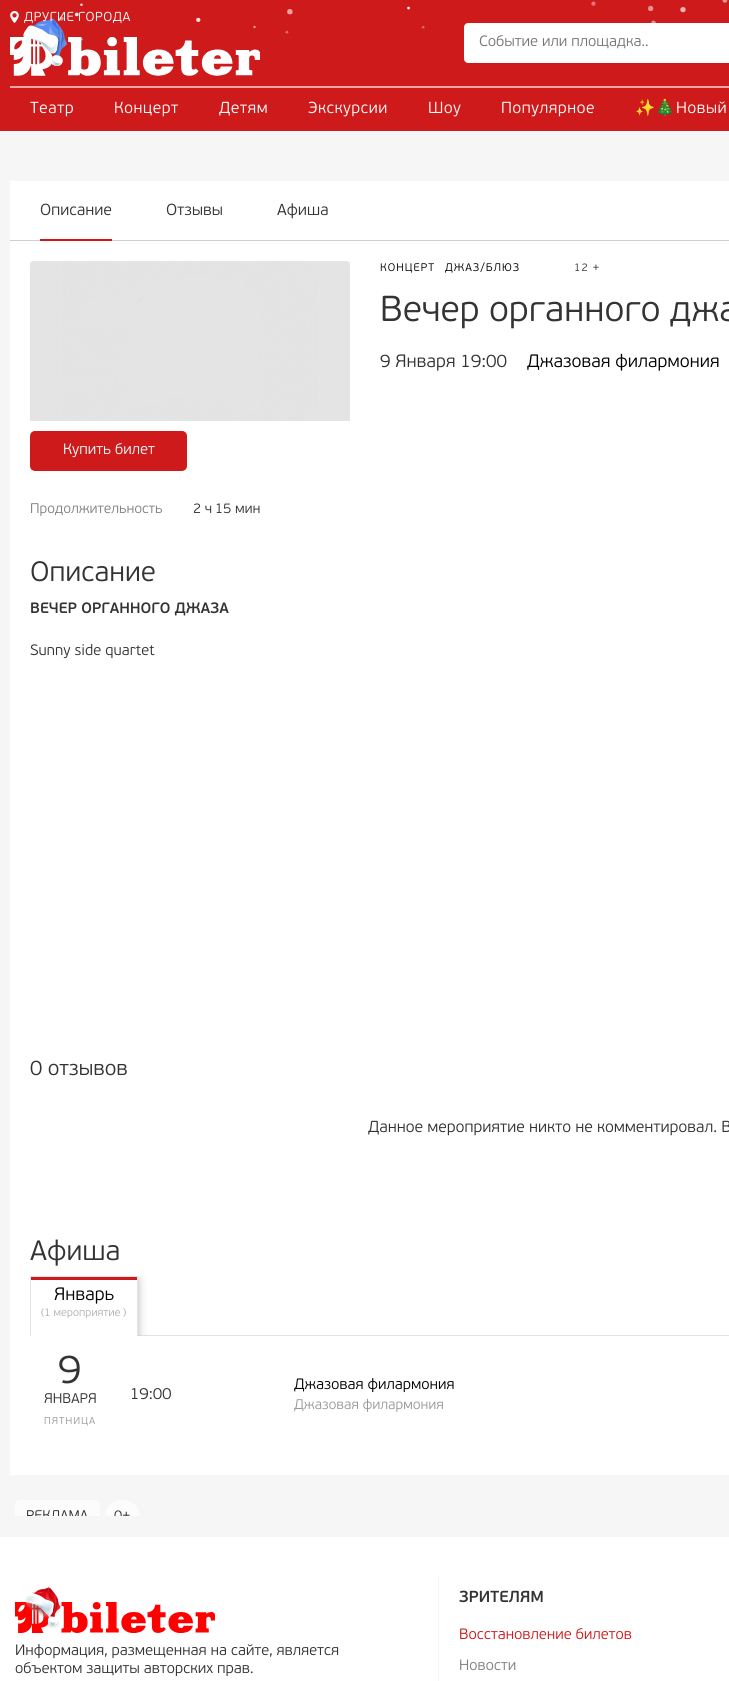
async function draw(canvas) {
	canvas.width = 729;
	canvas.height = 1681;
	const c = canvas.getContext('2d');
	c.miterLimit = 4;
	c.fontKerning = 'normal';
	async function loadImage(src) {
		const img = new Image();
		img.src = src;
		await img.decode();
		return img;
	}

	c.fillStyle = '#f6f6f6';
	c.fillRect(0, 0, 729, 1681);
	c.fillStyle = '#ce1a1b';
	c.fillRect(0, 0, 729, 131);
	c.drawImage(await loadImage('img1.png'), 59, 0, 669, 41);
	c.fillStyle = '#eba3a4';
	c.fillRect(10, 86, 719, 2);
	c.drawImage(await loadImage('img5.png'), 10, 18, 250, 58);
	c.drawImage(await loadImage('img2.png'), 10, 11, 9, 12);
	c.drawImage(await loadImage('img3.png'), 24, 11, 50, 13);
	c.drawImage(await loadImage('img4.png'), 78, 11, 53, 13);
	c.fillStyle = '#fff';
	c.beginPath();
	c.moveTo(468, 23);
	c.lineTo(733, 23);
	c.lineTo(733, 63);
	c.lineTo(468, 63);
	c.bezierCurveTo(466, 63, 464, 61, 464, 59);
	c.lineTo(464, 27);
	c.bezierCurveTo(464, 25, 466, 23, 468, 23);
	c.closePath();
	c.fill();
	c.drawImage(await loadImage('img6.png'), 479, 35, 169, 14);
	c.drawImage(await loadImage('img7.png'), 30, 101, 43, 16);
	c.drawImage(await loadImage('img8.png'), 115, 101, 64, 16);
	c.drawImage(await loadImage('img9.png'), 219, 101, 48, 15);
	c.drawImage(await loadImage('img10.png'), 308, 101, 79, 16);
	c.drawImage(await loadImage('img11.png'), 429, 101, 32, 16);
	c.drawImage(await loadImage('img12.png'), 502, 101, 92, 16);
	c.font = '16px Noto Color Emoji';
	c.fillText('✨🎄', 635, 113);
	c.drawImage(await loadImage('img13.png'), 677, 101, 49, 13);
	c.fillRect(10, 181, 719, 59);
	c.fillStyle = '#cfcfcf';
	c.fillRect(10, 240, 719, 1);
	c.drawImage(await loadImage('img14.png'), 40, 203, 72, 13);
	c.fillStyle = '#ce1a1b';
	c.fillRect(40, 239, 72, 2);
	c.drawImage(await loadImage('img15.png'), 166, 203, 56, 13);
	c.drawImage(await loadImage('img16.png'), 277, 203, 51, 16);
	c.fillStyle = '#fff';
	c.fillRect(10, 241, 719, 1234);
	c.drawImage(await loadImage('img17.png'), 30, 261, 320, 160);
	c.drawImage(await loadImage('img18.png'), 380, 263, 54, 10);
	c.drawImage(await loadImage('img19.png'), 445, 262, 74, 11);
	c.drawImage(await loadImage('img20.png'), 575, 263, 24, 8);
	c.drawImage(await loadImage('img21.png'), 382, 295, 347, 34);
	c.drawImage(await loadImage('img22.png'), 380, 354, 127, 17);
	c.drawImage(await loadImage('img23.png'), 527, 353, 192, 18);
	c.fillStyle = '#ce1a1b';
	c.beginPath();
	c.roundRect(30, 431, 157, 40, 5);
	c.fill();
	c.drawImage(await loadImage('img24.png'), 64, 443, 91, 15);
	c.drawImage(await loadImage('img25.png'), 31, 503, 131, 13);
	c.drawImage(await loadImage('img26.png'), 193, 503, 19, 10);
	c.drawImage(await loadImage('img27.png'), 216, 503, 44, 11);
	c.drawImage(await loadImage('img28.png'), 31, 561, 124, 21);
	c.drawImage(await loadImage('img29.png'), 31, 602, 198, 14);
	c.drawImage(await loadImage('img30.png'), 30, 644, 125, 15);
	c.drawImage(await loadImage('img31.png'), 30, 1060, 97, 16);
	c.drawImage(await loadImage('img32.png'), 368, 1120, 361, 16);
	c.drawImage(await loadImage('img33.png'), 30, 1239, 89, 27);
	c.fillStyle = '#e3e3e3';
	c.fillRect(138, 1335, 591, 1);
	c.drawImage(await loadImage('img37.png'), 59, 1355, 21, 29);
	c.save();
	c.beginPath();
	c.rect(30, 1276, 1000, 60);
	c.clip();
	c.fillStyle = '#b5b5b5';
	c.filter = 'blur(5px)';
	c.beginPath();
	c.rect(30, 1276, 108, 70);
	c.fill();
	c.filter = 'none';
	c.restore();
	for (const [x, y, w, h, color] of [
		[31, 1280, 106, 56, '#fff'],
		[30, 1276, 108, 1, '#e3e3e3'],
		[137, 1276, 1, 60, '#e3e3e3'],
		[30, 1276, 1, 60, '#e3e3e3'],
		[31, 1277, 106, 3, '#ce1a1b'],
	]) {
		c.fillStyle = color;
		c.fillRect(x, y, w, h);
	}
	c.drawImage(await loadImage('img34.png'), 54, 1287, 60, 17);
	c.drawImage(await loadImage('img35.png'), 41, 1308, 79, 11);
	c.drawImage(await loadImage('img36.png'), 123, 1308, 3, 9);
	c.drawImage(await loadImage('img38.png'), 44, 1393, 52, 10);
	c.drawImage(await loadImage('img39.png'), 44, 1417, 51, 9);
	c.drawImage(await loadImage('img40.png'), 132, 1388, 39, 12);
	c.drawImage(await loadImage('img41.png'), 294, 1378, 160, 15);
	c.drawImage(await loadImage('img42.png'), 294, 1398, 149, 14);
	c.fillStyle = '#fcfcfc';
	c.beginPath();
	c.roundRect(15, 1500, 85, 16, [5, 5, 0, 0]);
	c.fill();
	c.drawImage(await loadImage('img43.png'), 27, 1510, 60, 6);
	c.beginPath();
	c.roundRect(105, 1500, 35, 16, [17.5, 17.5, 0, 0]);
	c.fill();
	c.drawImage(await loadImage('img44.png'), 114, 1510, 16, 6);
	c.fillStyle = '#fff';
	c.fillRect(0, 1537, 729, 144);
	c.drawImage(await loadImage('img45.png'), 15, 1587, 200, 46);
	c.drawImage(await loadImage('img46.png'), 16, 1644, 323, 15);
	c.drawImage(await loadImage('img47.png'), 15, 1662, 238, 15);
	c.fillStyle = '#f5f5f5';
	c.fillRect(438, 1577, 1, 104);
	c.drawImage(await loadImage('img48.png'), 459, 1590, 84, 13);
	c.drawImage(await loadImage('img49.png'), 460, 1628, 172, 12);
	c.drawImage(await loadImage('img50.png'), 460, 1659, 56, 12);
}

draw(document.querySelector('canvas'));
